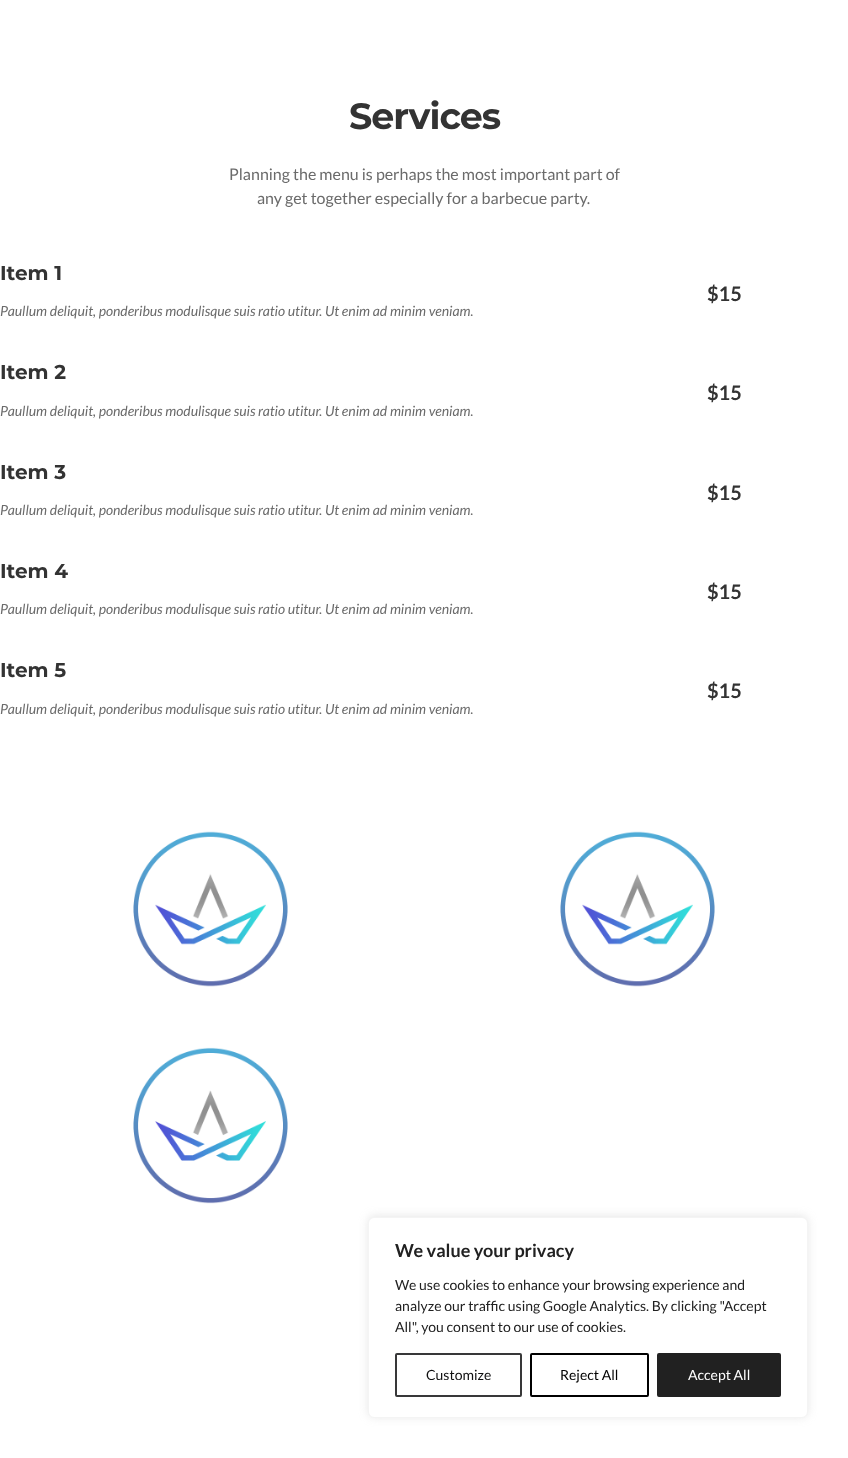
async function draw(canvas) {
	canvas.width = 848;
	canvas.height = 1458;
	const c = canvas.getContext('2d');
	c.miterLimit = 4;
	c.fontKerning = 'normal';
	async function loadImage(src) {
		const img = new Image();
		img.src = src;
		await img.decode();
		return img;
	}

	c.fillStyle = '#fff';
	c.fillRect(0, 0, 848, 1458);
	c.letterSpacing = '-1px';
	c.font = 'bold 36.5px Montserrat';
	c.fillStyle = '#333';
	c.fillText('Services', 349, 129);
	c.letterSpacing = '0px';
	c.font = '16px Lato';
	c.fillStyle = '#6b6b6b';
	c.fillText('Planning the menu is perhaps the most important part of', 229, 180);
	c.fillText('any get together especially for a barbecue party.', 257, 204);
	c.font = 'bold 20px Montserrat';
	c.fillStyle = '#333';
	c.fillText('Item 1', 0, 280);
	c.font = 'italic 14px Lato';
	c.fillStyle = '#6b6b6b';
	c.fillText('Paullum deliquit, ponderibus modulisque suis ratio utitur. Ut enim ad minim veniam.', 0, 316);
	c.font = 'bold 20px Lato';
	c.fillStyle = '#333';
	c.fillText('$15', 707, 301);
	c.font = 'bold 20px Montserrat';
	c.fillText('Item 2', 0, 379);
	c.font = 'italic 14px Lato';
	c.fillStyle = '#6b6b6b';
	c.fillText('Paullum deliquit, ponderibus modulisque suis ratio utitur. Ut enim ad minim veniam.', 0, 416);
	c.font = 'bold 20px Lato';
	c.fillStyle = '#333';
	c.fillText('$15', 707, 400);
	c.font = 'bold 20px Montserrat';
	c.fillText('Item 3', 0, 479);
	c.font = 'italic 14px Lato';
	c.fillStyle = '#6b6b6b';
	c.fillText('Paullum deliquit, ponderibus modulisque suis ratio utitur. Ut enim ad minim veniam.', 0, 515);
	c.font = 'bold 20px Lato';
	c.fillStyle = '#333';
	c.fillText('$15', 707, 500);
	c.font = 'bold 20px Montserrat';
	c.fillText('Item 4', 0, 578);
	c.font = 'italic 14px Lato';
	c.fillStyle = '#6b6b6b';
	c.fillText('Paullum deliquit, ponderibus modulisque suis ratio utitur. Ut enim ad minim veniam.', 0, 614);
	c.font = 'bold 20px Lato';
	c.fillStyle = '#333';
	c.fillText('$15', 707, 599);
	c.font = 'bold 20px Montserrat';
	c.fillText('Item 5', 0, 677);
	c.font = 'italic 14px Lato';
	c.fillStyle = '#6b6b6b';
	c.fillText('Paullum deliquit, ponderibus modulisque suis ratio utitur. Ut enim ad minim veniam.', 0, 714);
	c.font = 'bold 20px Lato';
	c.fillStyle = '#333';
	c.fillText('$15', 707, 698);
	c.drawImage(await loadImage('img1.png'), 133, 831, 155, 156);
	c.drawImage(await loadImage('img2.png'), 133, 1047, 155, 157);
	c.drawImage(await loadImage('img1.png'), 560, 831, 155, 156);
	c.fillStyle = '#acabab4d';
	c.filter = 'blur(5px)';
	c.beginPath();
	c.roundRect(368, 1216, 440, 201, 6);
	c.fill();
	c.filter = 'none';
	c.fillStyle = '#fff';
	c.beginPath();
	c.roundRect(368.5, 1217.5, 439, 200, 5.5);
	c.fill();
	c.strokeStyle = '#f4f4f4';
	c.stroke();
	c.font = 'bold 18px Lato';
	c.fillStyle = '#212121';
	c.fillText('We value your privacy', 395, 1257);
	c.font = '14px Lato';
	for (const [text, x, y] of [
		['We use cookies to enhance your browsing experience and', 395, 1290],
		['analyze our traffic using Google Analytics. By clicking "Accept', 395, 1311],
		['All", you consent to our use of cookies.', 395, 1332],
	]) {
		c.fillText(text, x, y);
	}
	c.beginPath();
	c.roundRect(396, 1354, 125, 42, 1);
	c.strokeStyle = '#383839';
	c.lineWidth = 2;
	c.stroke();
	c.fillStyle = '#0f0f10';
	c.fillText('Customize', 426, 1380);
	c.beginPath();
	c.roundRect(531, 1354, 117, 42, 1);
	c.strokeStyle = '#000';
	c.stroke();
	c.fillStyle = '#010101';
	c.fillText('Reject All', 560, 1380);
	c.fillStyle = '#212121';
	c.beginPath();
	c.roundRect(658, 1354, 122, 42, 1);
	c.fill();
	c.strokeStyle = '#212121';
	c.stroke();
	c.fillStyle = '#fff';
	c.fillText('Accept All', 688, 1380);
}

draw(document.querySelector('canvas'));
